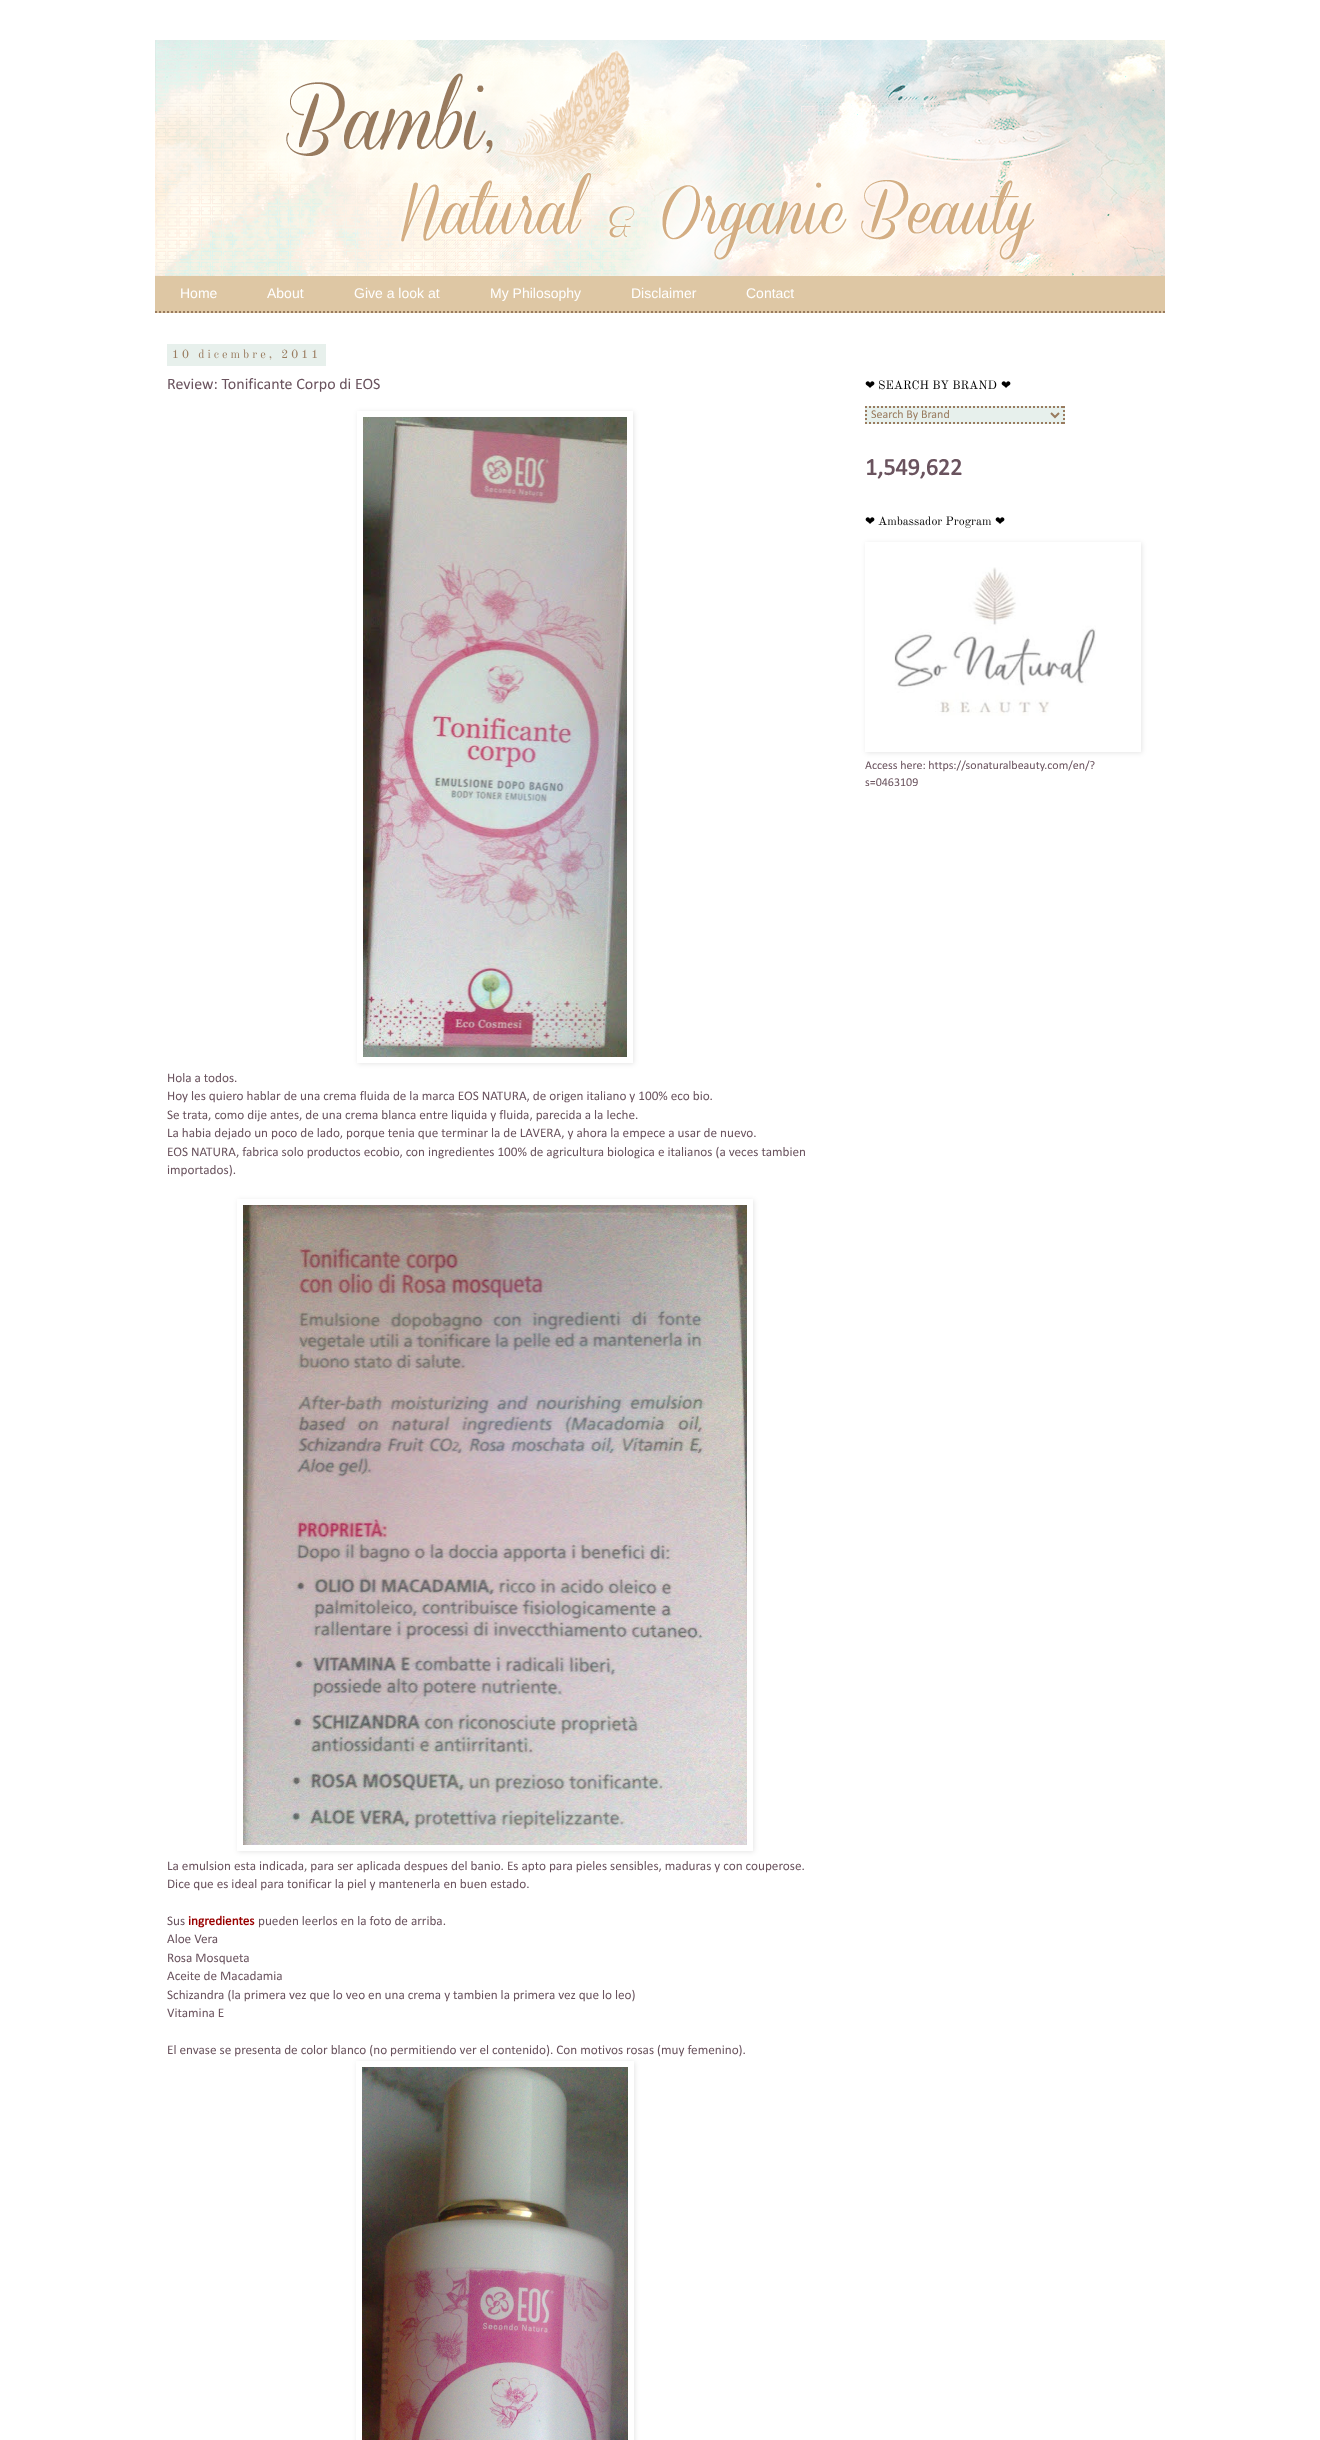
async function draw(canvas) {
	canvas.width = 1320;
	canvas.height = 2440;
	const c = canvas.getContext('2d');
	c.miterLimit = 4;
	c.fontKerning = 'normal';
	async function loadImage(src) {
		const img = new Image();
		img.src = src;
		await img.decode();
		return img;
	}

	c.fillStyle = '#fff';
	c.fillRect(0, 0, 1320, 2440);
	c.drawImage(await loadImage('img1.png'), 155, 40, 1010, 236);
	c.fillStyle = '#dec7a4';
	c.fillRect(155, 276, 1010, 37);
	c.beginPath();
	c.moveTo(155, 312);
	c.lineTo(1165, 312);
	c.strokeStyle = '#997b5e';
	c.lineWidth = 2;
	c.setLineDash([2, 2]);
	c.stroke();
	c.font = '14px Liberation Sans';
	c.fillStyle = '#fff';
	for (const [text, x, y] of [
		['Home', 180, 298],
		['About', 267, 298],
		['Give a look at', 354, 298],
		['My Philosophy', 490, 298],
		['Disclaimer', 631, 298],
		['Contact', 746, 298],
	]) {
		c.fillText(text, x, y);
	}
	c.fillStyle = '#e7f0ec';
	c.fillRect(167, 344, 159, 22);
	c.letterSpacing = '3px';
	c.font = '12px Old Standard TT';
	c.fillStyle = '#997b5e';
	c.fillText('10 dicembre, 2011', 172, 358);
	c.letterSpacing = '0px';
	c.font = '16px Calibri';
	c.fillStyle = '#6a535e';
	c.fillText('Review: Tonificante Corpo di EOS', 167, 389);
	c.save();
	c.beginPath();
	c.moveTo(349, 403);
	c.lineTo(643, 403);
	c.lineTo(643, 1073);
	c.lineTo(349, 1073);
	c.closePath();
	c.moveTo(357, 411);
	c.lineTo(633, 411);
	c.lineTo(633, 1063);
	c.lineTo(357, 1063);
	c.closePath();
	c.clip('evenodd');
	c.fillStyle = '#0000001a';
	c.filter = 'blur(2.5px)';
	c.beginPath();
	c.rect(358, 412, 276, 652);
	c.fill();
	c.filter = 'none';
	c.restore();
	c.drawImage(await loadImage('img2.png'), 363, 417, 264, 640);
	c.font = '13.2px Calibri';
	for (const [text, x, y] of [
		['Hola a todos.', 167, 1082],
		['Hoy les quiero hablar de una crema fluida de la marca EOS NATURA, de origen italiano y 100% eco bio.', 167, 1100],
		['Se trata, como dije antes, de una crema blanca entre liquida y fluida, parecida a la leche.', 167, 1119],
		['La habia dejado un poco de lado, porque tenia que terminar la de LAVERA, y ahora la empece a usar de nuevo.', 167, 1137],
		['EOS NATURA, fabrica solo productos ecobio, con ingredientes 100% de agricultura biologica e italianos (a veces tambien', 167, 1156],
		['importados).', 167, 1174],
	]) {
		c.fillText(text, x, y);
	}
	c.save();
	c.beginPath();
	c.moveTo(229, 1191);
	c.lineTo(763, 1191);
	c.lineTo(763, 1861);
	c.lineTo(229, 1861);
	c.closePath();
	c.moveTo(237, 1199);
	c.lineTo(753, 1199);
	c.lineTo(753, 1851);
	c.lineTo(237, 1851);
	c.closePath();
	c.clip('evenodd');
	c.fillStyle = '#0000001a';
	c.filter = 'blur(2.5px)';
	c.beginPath();
	c.rect(238, 1200, 516, 652);
	c.fill();
	c.filter = 'none';
	c.restore();
	c.drawImage(await loadImage('img3.png'), 243, 1205, 504, 640);
	for (const [text, x, y] of [
		['La emulsion esta indicada, para ser aplicada despues del banio. Es apto para pieles sensibles, maduras y con couperose.', 167, 1870],
		['Dice que es ideal para tonificar la piel y mantenerla en buen estado.', 167, 1888],
		['Sus', 167, 1925],
	]) {
		c.fillText(text, x, y);
	}
	c.font = 'bold 13.2px Calibri';
	c.fillStyle = '#900';
	c.fillText('ingredientes', 188, 1925);
	c.font = '13.2px Calibri';
	c.fillStyle = '#6a535e';
	for (const [text, x, y] of [
		['pueden leerlos en la foto de arriba.', 258, 1925],
		['Aloe Vera', 167, 1943],
		['Rosa Mosqueta', 167, 1962],
		['Aceite de Macadamia', 167, 1980],
		['Schizandra (la primera vez que lo veo en una crema y tambien la primera vez que lo leo)', 167, 1999],
		['Vitamina E', 167, 2017],
		['El envase se presenta de color blanco (no permitiendo ver el contenido). Con motivos rosas (muy femenino).', 167, 2054],
	]) {
		c.fillText(text, x, y);
	}
	c.save();
	c.beginPath();
	c.moveTo(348, 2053);
	c.lineTo(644, 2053);
	c.lineTo(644, 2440);
	c.lineTo(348, 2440);
	c.closePath();
	c.moveTo(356, 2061);
	c.lineTo(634, 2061);
	c.lineTo(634, 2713);
	c.lineTo(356, 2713);
	c.closePath();
	c.clip('evenodd');
	c.fillStyle = '#0000001a';
	c.filter = 'blur(2.5px)';
	c.beginPath();
	c.rect(357, 2062, 278, 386);
	c.fill();
	c.filter = 'none';
	c.restore();
	c.drawImage(await loadImage('img4.png'), 362, 2067, 266, 373);
	c.font = '12px DejaVu Sans';
	c.fillStyle = '#000';
	c.fillText('❤', 865, 389);
	c.font = '12px Old Standard TT';
	c.fillText('SEARCH BY BRAND', 878, 389);
	c.font = '12px DejaVu Sans';
	c.fillText('❤', 1001, 389);
	c.fillStyle = '#e7f0ec';
	c.fillRect(865, 406, 200, 18);
	c.beginPath();
	c.moveTo(865, 407);
	c.lineTo(1065, 407);
	c.stroke();
	c.beginPath();
	c.moveTo(1064, 406);
	c.lineTo(1064, 424);
	c.stroke();
	c.beginPath();
	c.moveTo(865, 423);
	c.lineTo(1065, 423);
	c.stroke();
	c.beginPath();
	c.moveTo(866, 406);
	c.lineTo(866, 424);
	c.stroke();
	c.beginPath();
	c.moveTo(1051, 413);
	c.lineTo(1055, 417);
	c.lineTo(1059, 413);
	c.setLineDash([]);
	c.stroke();
	c.font = '12px Calibri';
	c.fillStyle = '#997b5e';
	c.fillText('Search By Brand', 871, 418);
	c.font = 'bold 24px Calibri';
	c.fillStyle = '#6a535e';
	c.fillText('1,549,622', 865, 475);
	c.font = '12px DejaVu Sans';
	c.fillStyle = '#000';
	c.fillText('❤', 865, 525);
	c.font = '12px Old Standard TT';
	c.fillText('Ambassador Program', 878, 525);
	c.font = '12px DejaVu Sans';
	c.fillText('❤', 995, 525);
	c.save();
	c.beginPath();
	c.moveTo(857, 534);
	c.lineTo(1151, 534);
	c.lineTo(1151, 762);
	c.lineTo(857, 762);
	c.closePath();
	c.moveTo(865, 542);
	c.lineTo(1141, 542);
	c.lineTo(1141, 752);
	c.lineTo(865, 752);
	c.closePath();
	c.clip('evenodd');
	c.fillStyle = '#0000001a';
	c.filter = 'blur(2.5px)';
	c.beginPath();
	c.rect(866, 543, 276, 210);
	c.fill();
	c.filter = 'none';
	c.restore();
	c.drawImage(await loadImage('img5.png'), 894, 567, 202, 149);
	c.font = '12px Calibri';
	c.fillStyle = '#6a535e';
	c.fillText('Access here: https://sonaturalbeauty.com/en/?', 865, 769);
	c.fillText('s=0463109', 865, 786);
}

draw(document.querySelector('canvas'));
